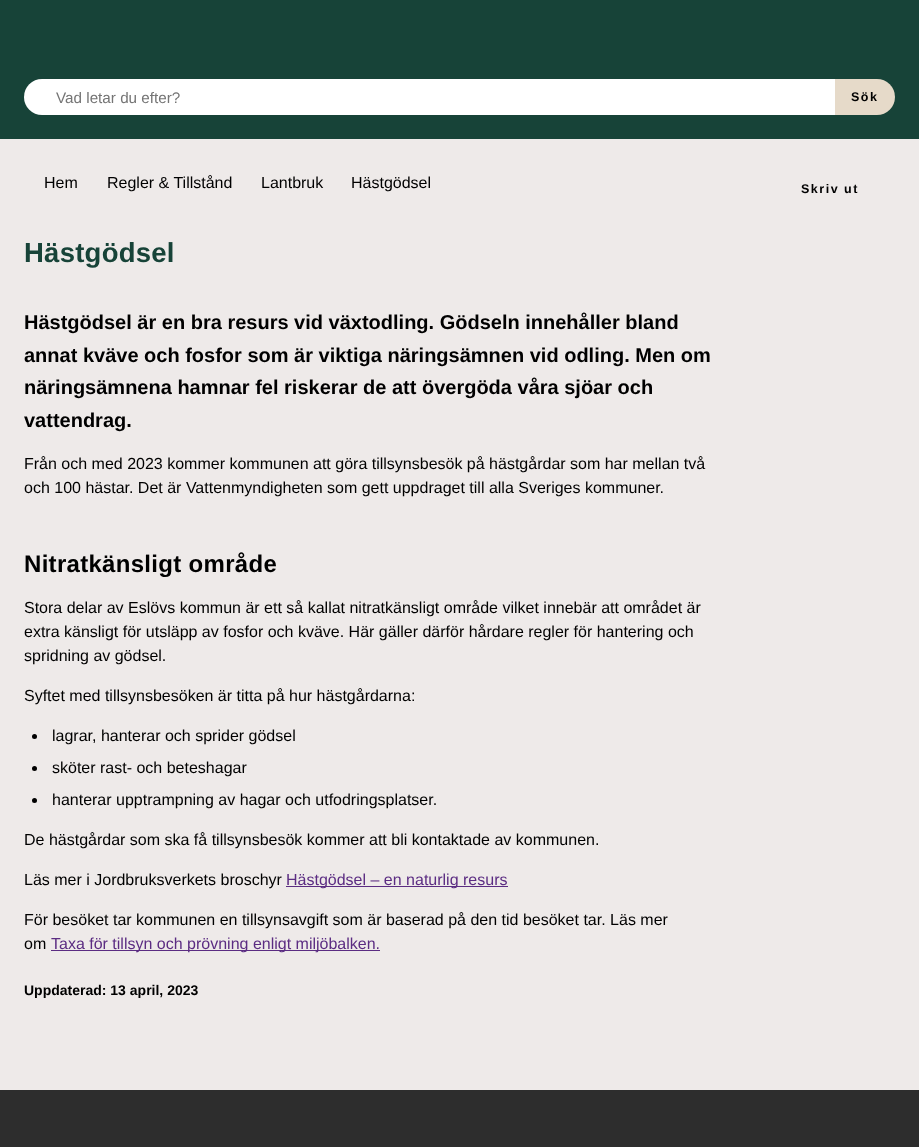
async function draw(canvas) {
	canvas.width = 919;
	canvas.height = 1147;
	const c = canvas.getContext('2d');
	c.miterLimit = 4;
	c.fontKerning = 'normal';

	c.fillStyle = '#eeeae9';
	c.fillRect(0, 0, 919, 1147);
	c.fillStyle = '#174338';
	c.fillRect(0, 0, 919, 139);
	c.fillStyle = '#fff';
	c.beginPath();
	c.roundRect(24, 79, 811, 36, [18, 0, 0, 18]);
	c.fill();
	c.font = '15.25px Liberation Sans';
	c.fillStyle = '#757575';
	c.fillText('Vad letar du efter?', 56, 103);
	c.fillStyle = '#e6dac9';
	c.beginPath();
	c.roundRect(835, 79, 60, 36, [0, 18, 18, 0]);
	c.fill();
	c.letterSpacing = '1.5px';
	c.font = 'bold 12.5px Liberation Sans';
	c.fillStyle = '#000';
	c.fillText('Sök', 851, 101);
	c.letterSpacing = '0px';
	c.font = '16px Liberation Sans';
	for (const [text, x, y] of [
		['Hem', 44, 188],
		['Regler & Tillstånd', 107, 188],
		['Lantbruk', 261, 188],
		['Hästgödsel', 351, 188],
	]) {
		c.fillText(text, x, y);
	}
	c.letterSpacing = '1.5px';
	c.font = 'bold 12.5px Liberation Sans';
	c.fillText('Skriv ut', 801, 193);
	c.letterSpacing = '0.25px';
	c.font = 'bold 27.5px Liberation Sans';
	c.fillStyle = '#174338';
	c.fillText('Hästgödsel', 24, 262);
	c.letterSpacing = '0px';
	c.font = 'bold 20px Liberation Sans';
	c.fillStyle = '#000';
	for (const [text, x, y] of [
		['Hästgödsel är en bra resurs vid växtodling. Gödseln innehåller bland', 24, 329],
		['annat kväve och fosfor som är viktiga näringsämnen vid odling. Men om', 24, 362],
		['näringsämnena hamnar fel riskerar de att övergöda våra sjöar och', 24, 394],
		['vattendrag.', 24, 427],
	]) {
		c.fillText(text, x, y);
	}
	c.font = '16px Liberation Sans';
	c.fillText('Från och med 2023 kommer kommunen att göra tillsynsbesök på hästgårdar som har mellan två', 24, 469);
	c.fillText('och 100 hästar. Det är Vattenmyndigheten som gett uppdraget till alla Sveriges kommuner.', 24, 493);
	c.letterSpacing = '0.3px';
	c.font = 'bold 24px Liberation Sans';
	c.fillText('Nitratkänsligt område', 24, 572);
	c.letterSpacing = '0px';
	c.font = '16px Liberation Sans';
	for (const [text, x, y] of [
		['Stora delar av Eslövs kommun är ett så kallat nitratkänsligt område vilket innebär att området är', 24, 613],
		['extra känsligt för utsläpp av fosfor och kväve. Här gäller därför hårdare regler för hantering och', 24, 637],
		['spridning av gödsel.', 24, 661],
		['Syftet med tillsynsbesöken är titta på hur hästgårdarna:', 24, 701],
	]) {
		c.fillText(text, x, y);
	}
	c.beginPath();
	c.arc(34.5, 736.5, 2.5, 0, 2 * Math.PI);
	c.fill();
	c.fillText('lagrar, hanterar och sprider gödsel', 52, 741);
	c.beginPath();
	c.arc(34.5, 768.5, 2.5, 0, 2 * Math.PI);
	c.fill();
	c.fillText('sköter rast- och beteshagar', 52, 773);
	c.beginPath();
	c.arc(34.5, 800.5, 2.5, 0, 2 * Math.PI);
	c.fill();
	for (const [text, x, y] of [
		['hanterar upptrampning av hagar och utfodringsplatser.', 52, 805],
		['De hästgårdar som ska få tillsynsbesök kommer att bli kontaktade av kommunen.', 24, 845],
		['Läs mer i Jordbruksverkets broschyr', 24, 885],
	]) {
		c.fillText(text, x, y);
	}
	c.fillStyle = '#5b2c82';
	c.fillRect(286, 886, 222, 1);
	c.fillText('Hästgödsel – en naturlig resurs', 286, 885);
	c.fillStyle = '#000';
	c.fillText('För besöket tar kommunen en tillsynsavgift som är baserad på den tid besöket tar. Läs mer', 24, 925);
	c.fillText('om', 24, 949);
	c.fillStyle = '#5b2c82';
	c.fillRect(51, 950, 329, 1);
	c.fillText('Taxa för tillsyn och prövning enligt miljöbalken.', 51, 949);
	c.font = 'bold 14px Liberation Sans';
	c.fillStyle = '#000';
	c.fillText('Uppdaterad: 13 april, 2023', 24, 995);
	c.fillStyle = '#2d2d2d';
	c.fillRect(0, 1090, 919, 57);
}

draw(document.querySelector('canvas'));
